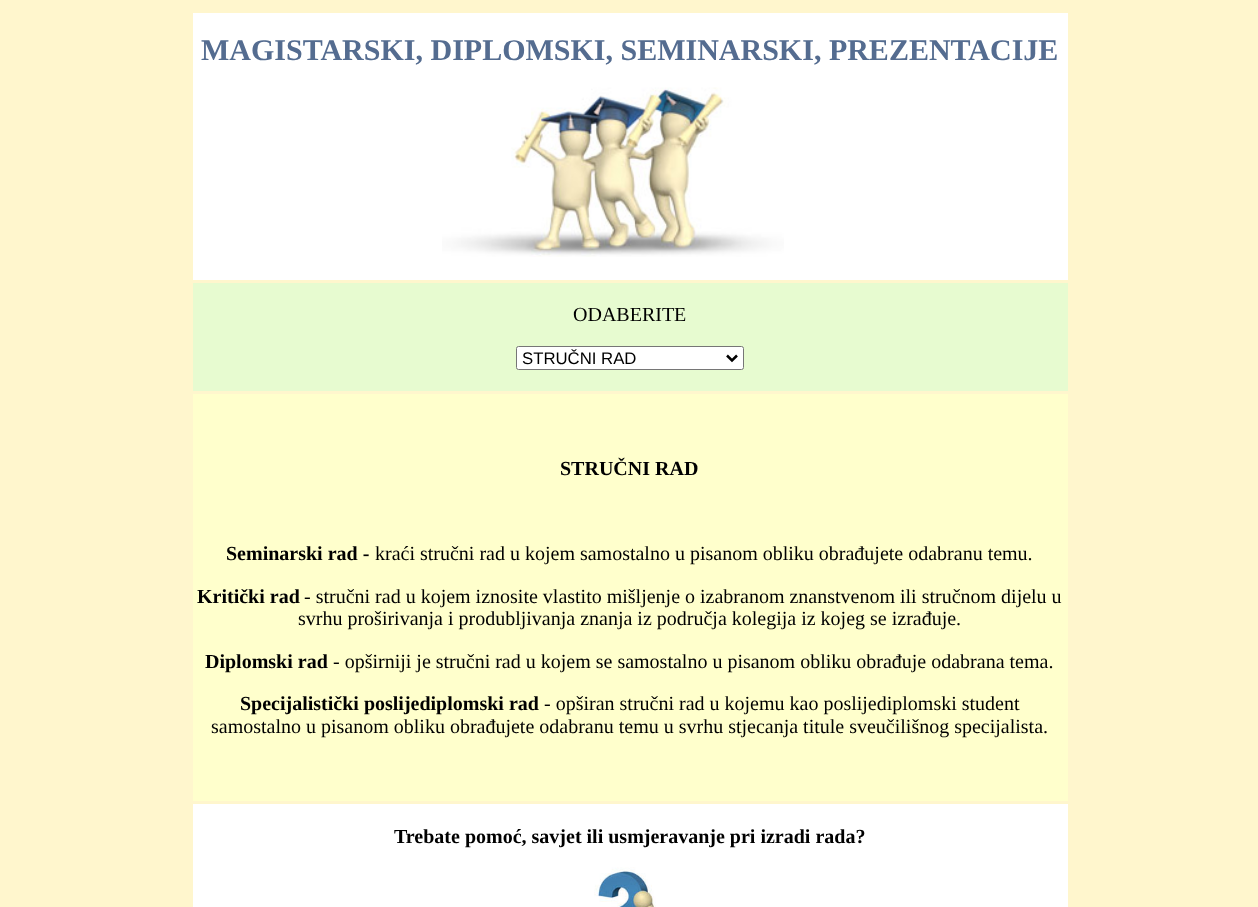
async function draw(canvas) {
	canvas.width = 1258;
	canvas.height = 907;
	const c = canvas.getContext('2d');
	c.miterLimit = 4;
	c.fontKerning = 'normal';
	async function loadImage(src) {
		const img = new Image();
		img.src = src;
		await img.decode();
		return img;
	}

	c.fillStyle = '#fff6cd';
	c.fillRect(0, 0, 1258, 907);
	c.fillStyle = '#fff';
	c.fillRect(193, 13, 875, 267);
	c.font = 'bold 30px Liberation Serif';
	c.fillStyle = '#546c90';
	c.fillText('MAGISTARSKI, DIPLOMSKI, SEMINARSKI, PREZENTACIJE', 201, 60);
	c.drawImage(await loadImage('img1.png'), 442, 87, 342, 170);
	c.fillStyle = '#e7fbd0';
	c.fillRect(193, 283, 875, 108);
	c.font = '20px Liberation Serif';
	c.fillStyle = '#000';
	c.fillText('ODABERITE', 573, 321);
	c.fillStyle = '#fff';
	c.beginPath();
	c.roundRect(516.5, 346.5, 227, 23, 2);
	c.fill();
	c.strokeStyle = '#767676';
	c.stroke();
	c.beginPath();
	c.moveTo(727, 355.5);
	c.lineTo(732, 360.5);
	c.lineTo(737, 355.5);
	c.strokeStyle = '#000';
	c.lineWidth = 2.5;
	c.stroke();
	c.font = '16.75px Liberation Sans';
	c.fillStyle = '#000';
	c.fillText('STRUČNI RAD', 522, 364);
	c.fillStyle = '#ffc';
	c.fillRect(193, 394, 875, 407);
	c.font = 'bold 20px Liberation Serif';
	c.fillStyle = '#000';
	c.fillText('STRUČNI RAD', 560, 475);
	c.fillText('Seminarski rad -', 226, 560);
	c.font = '20px Liberation Serif';
	c.fillText('kraći stručni rad u kojem samostalno u pisanom obliku obrađujete odabranu temu.', 375, 560);
	c.font = 'bold 20px Liberation Serif';
	c.fillText('Kritički rad', 197, 603);
	c.font = '20px Liberation Serif';
	c.fillText('- stručni rad u kojem iznosite vlastito mišljenje o izabranom znanstvenom ili stručnom dijelu u', 304, 603);
	c.fillText('svrhu proširivanja i produbljivanja znanja iz područja kolegija iz kojeg se izrađuje.', 298, 625);
	c.font = 'bold 20px Liberation Serif';
	c.fillText('Diplomski rad', 205, 668);
	c.font = '20px Liberation Serif';
	c.fillText('- opširniji je stručni rad u kojem se samostalno u pisanom obliku obrađuje odabrana tema.', 333, 668);
	c.font = 'bold 20px Liberation Serif';
	c.fillText('Specijalistički poslijediplomski rad', 240, 710);
	c.font = '20px Liberation Serif';
	c.fillText('- opširan stručni rad u kojemu kao poslijediplomski student', 544, 710);
	c.fillText('samostalno u pisanom obliku obrađujete odabranu temu u svrhu stjecanja titule sveučilišnog specijalista.', 211, 733);
	c.fillStyle = '#fff';
	c.fillRect(193, 804, 875, 103);
	c.font = 'bold 20px Liberation Serif';
	c.fillStyle = '#000';
	c.fillText('Trebate pomoć, savjet ili usmjeravanje pri izradi rada?', 394, 843);
	c.drawImage(await loadImage('img2.png'), 594, 867, 62, 40);
}

draw(document.querySelector('canvas'));
